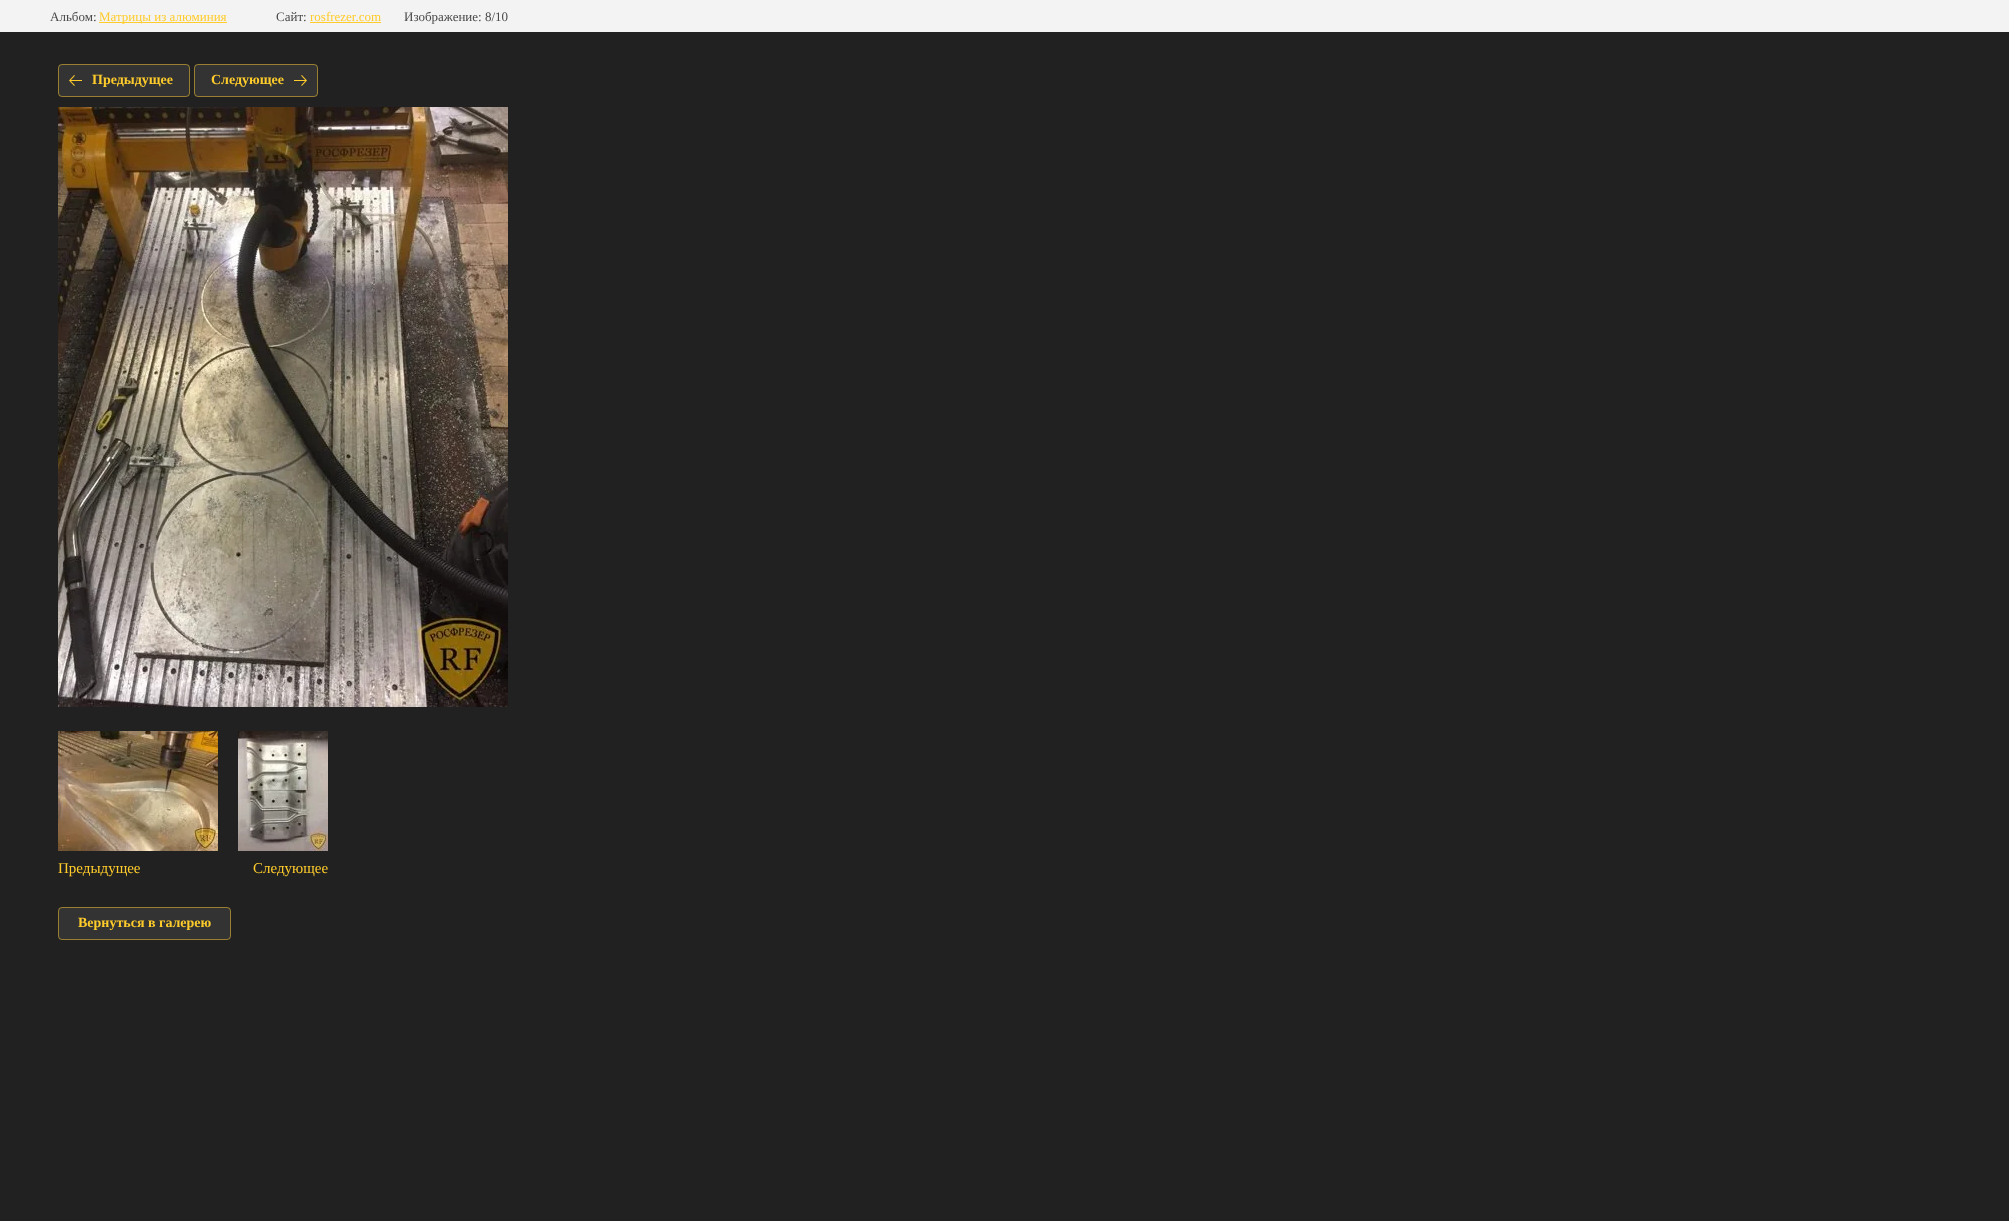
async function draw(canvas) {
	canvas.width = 2009;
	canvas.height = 1221;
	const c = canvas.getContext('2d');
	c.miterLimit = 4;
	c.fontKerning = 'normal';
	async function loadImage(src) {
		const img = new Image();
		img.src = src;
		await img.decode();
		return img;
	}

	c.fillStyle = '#212121';
	c.fillRect(0, 0, 2009, 1221);
	c.fillStyle = '#f3f3f3';
	c.fillRect(0, 0, 2009, 32);
	c.font = '13px Liberation Serif';
	c.fillStyle = '#484848';
	c.fillText('Альбом:', 50, 21);
	c.fillStyle = '#ffcc2b';
	c.fillRect(99, 22, 128, 1);
	c.fillText('Матрицы из алюминия', 99, 21);
	c.fillStyle = '#484848';
	c.fillText('Сайт:', 276, 21);
	c.fillStyle = '#ffcc2b';
	c.fillText('rosfrezer.com', 310, 21);
	c.fillRect(310, 22, 71, 1);
	c.fillStyle = '#484848';
	c.fillText('Изображение: 8/10', 404, 21);
	c.fillStyle = '#333';
	c.beginPath();
	c.roundRect(58, 64, 132, 33, 4);
	c.fill();
	c.beginPath();
	c.roundRect(58.5, 64.5, 131, 32, 3.5);
	c.strokeStyle = '#ffcc2b80';
	c.stroke();
	c.drawImage(await loadImage('img1.png'), 69, 75, 13, 11);
	c.font = 'bold 14px Liberation Serif';
	c.fillStyle = '#ffcc2b';
	c.fillText('Предыдущее', 92, 84);
	c.fillStyle = '#333';
	c.beginPath();
	c.roundRect(194, 64, 124, 33, 4);
	c.fill();
	c.beginPath();
	c.roundRect(194.5, 64.5, 123, 32, 3.5);
	c.stroke();
	c.fillStyle = '#ffcc2b';
	c.fillText('Следующее', 211, 84);
	c.drawImage(await loadImage('img2.png'), 294, 75, 13, 11);
	c.drawImage(await loadImage('img3.png'), 58, 107, 450, 600);
	c.drawImage(await loadImage('img4.png'), 58, 731, 160, 120);
	c.font = '15px Liberation Serif';
	c.fillText('Предыдущее', 58, 873);
	c.drawImage(await loadImage('img5.png'), 238, 731, 90, 120);
	c.fillText('Следующее', 253, 873);
	c.fillStyle = '#333';
	c.beginPath();
	c.roundRect(58, 907, 173, 33, 4);
	c.fill();
	c.beginPath();
	c.roundRect(58.5, 907.5, 172, 32, 3.5);
	c.stroke();
	c.font = 'bold 14px Liberation Serif';
	c.fillStyle = '#ffcc2b';
	c.fillText('Вернуться в галерею', 78, 927);
}

draw(document.querySelector('canvas'));
